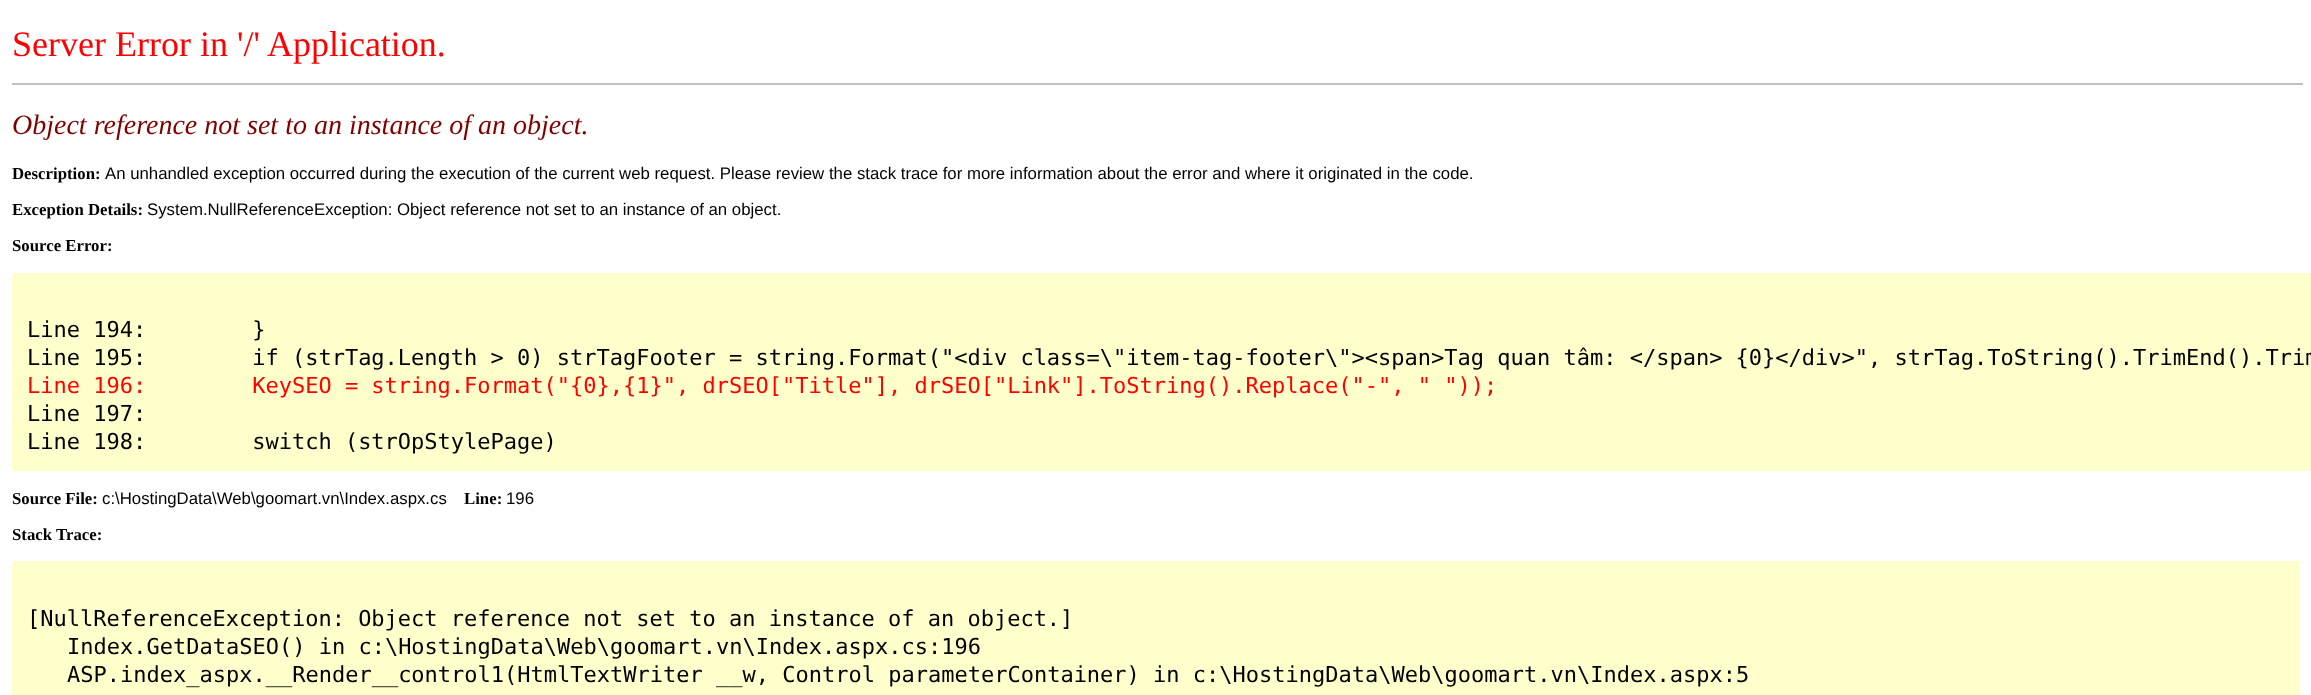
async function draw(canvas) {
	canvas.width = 2311;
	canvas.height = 695;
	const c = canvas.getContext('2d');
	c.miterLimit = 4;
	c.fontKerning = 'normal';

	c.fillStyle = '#fff';
	c.fillRect(0, 0, 2311, 695);
	c.font = '36px Liberation Serif';
	c.fillStyle = '#f00';
	c.fillText('Server Error in \'/\' Application.', 12, 56);
	c.fillStyle = '#c0c0c0';
	c.fillRect(12, 83, 2291, 2);
	c.font = 'italic 28px Liberation Serif';
	c.fillStyle = '#800000';
	c.fillText('Object reference not set to an instance of an object.', 12, 134);
	c.font = 'bold 16.8px Liberation Serif';
	c.fillStyle = '#000';
	c.fillText('Description:', 12, 179);
	c.font = '16.8px Liberation Sans';
	c.fillText('An unhandled exception occurred during the execution of the current web request. Please review the stack trace for more information about the error and where it originated in the code.', 105, 179);
	c.font = 'bold 16.8px Liberation Serif';
	c.fillText('Exception Details:', 12, 215);
	c.font = '16.8px Liberation Sans';
	c.fillText('System.NullReferenceException: Object reference not set to an instance of an object.', 147, 215);
	c.font = 'bold 16.8px Liberation Serif';
	c.fillText('Source Error:', 12, 251);
	c.fillStyle = '#ffc';
	c.fillRect(12, 273, 2299, 198);
	c.font = '22px DejaVu Sans Mono';
	c.fillStyle = '#000';
	c.fillText('Line 194:        }', 27, 337);
	c.fillText('Line 195:        if (strTag.Length > 0) strTagFooter = string.Format("<div class=\\"item-tag-footer\\"><span>Tag quan tâm: <\/span> {0}<\/div>", strTag.ToString().TrimEnd().Trim', 27, 365);
	c.fillStyle = '#f00';
	c.fillText('Line 196:        KeySEO = string.Format("{0},{1}", drSEO["Title"], drSEO["Link"].ToString().Replace("-", " "));', 27, 393);
	c.fillStyle = '#000';
	c.fillText('Line 197:', 27, 421);
	c.fillText('Line 198:        switch (strOpStylePage)', 27, 449);
	c.font = 'bold 16.8px Liberation Serif';
	c.fillText('Source File:', 12, 504);
	c.font = '16.8px Liberation Sans';
	c.fillText('c:\\HostingData\\Web\\goomart.vn\\Index.aspx.cs', 102, 504);
	c.font = 'bold 16.8px Liberation Serif';
	c.fillText('Line:', 464, 504);
	c.font = '16.8px Liberation Sans';
	c.fillText('196', 506, 504);
	c.font = 'bold 16.8px Liberation Serif';
	c.fillText('Stack Trace:', 12, 540);
	c.fillStyle = '#ffc';
	c.fillRect(12, 561, 2288, 134);
	c.font = '22px DejaVu Sans Mono';
	c.fillStyle = '#000';
	for (const [text, x, y] of [
		['[NullReferenceException: Object reference not set to an instance of an object.]', 27, 626],
		['Index.GetDataSEO() in c:\\HostingData\\Web\\goomart.vn\\Index.aspx.cs:196', 67, 654],
		['ASP.index_aspx.__Render__control1(HtmlTextWriter __w, Control parameterContainer) in c:\\HostingData\\Web\\goomart.vn\\Index.aspx:5', 67, 682],
	]) {
		c.fillText(text, x, y);
	}
}

draw(document.querySelector('canvas'));
